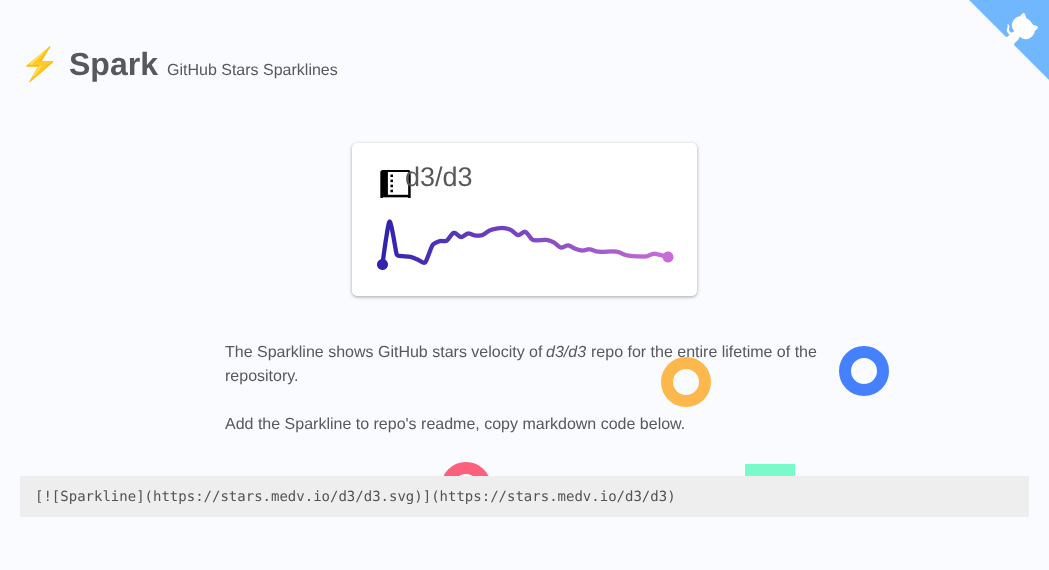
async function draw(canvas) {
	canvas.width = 1049;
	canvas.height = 570;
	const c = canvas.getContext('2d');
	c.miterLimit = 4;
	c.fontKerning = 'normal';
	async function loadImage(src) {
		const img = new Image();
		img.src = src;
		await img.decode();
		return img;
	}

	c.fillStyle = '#f9fbff';
	c.fillRect(0, 0, 1049, 570);
	c.font = 'bold 32px Noto Color Emoji';
	c.fillStyle = '#575859';
	c.fillText('⚡️', 20, 75);
	c.font = 'bold 32px Liberation Sans';
	c.fillText('Spark', 69, 75);
	c.font = '16px Liberation Sans';
	c.fillText('GitHub Stars Sparklines', 167, 75);
	c.fillStyle = '#0000003d';
	c.filter = 'blur(1.5px)';
	c.beginPath();
	c.roundRect(352, 144, 345, 153, 5);
	c.fill();
	c.filter = 'none';
	c.fillStyle = '#0000001f';
	c.filter = 'blur(2px)';
	c.beginPath();
	c.roundRect(352, 144, 345, 153, 5);
	c.fill();
	c.filter = 'none';
	c.fillStyle = '#fff';
	c.beginPath();
	c.roundRect(352, 143, 345, 153, 5);
	c.fill();
	c.drawImage(await loadImage('img1.png'), 380, 170, 31, 28);
	c.font = '27px Liberation Sans';
	c.fillStyle = '#575859';
	c.fillText('d3/d3', 405, 186);
	c.drawImage(await loadImage('img2.png'), 377, 219, 297, 51);
	c.font = '16px Liberation Sans';
	c.fillText('The Sparkline shows GitHub stars velocity of', 225, 357);
	c.font = 'italic 16px Liberation Sans';
	c.fillText('d3/d3', 546, 357);
	c.beginPath();
	c.arc(686, 382, 19, 0, 2 * Math.PI);
	c.strokeStyle = '#fcb84d';
	c.lineWidth = 12;
	c.stroke();
	c.font = '16px Liberation Sans';
	for (const [text, x, y] of [
		['repo for the entire lifetime of the', 591, 357],
		['repository.', 225, 381],
		['Add the Sparkline to repo\'s readme, copy markdown code below.', 225, 429],
	]) {
		c.fillText(text, x, y);
	}
	c.beginPath();
	c.arc(466, 487, 19, 0, 2 * Math.PI);
	c.strokeStyle = '#fc607f';
	c.stroke();
	c.strokeStyle = '#78faca';
	c.strokeRect(751, 470, 38, 38);
	c.fillStyle = '#eee';
	c.fillRect(20, 476, 1009, 41);
	c.font = '14px DejaVu Sans Mono';
	c.fillStyle = '#535353';
	c.fillText('[![Sparkline](https://stars.medv.io/d3/d3.svg)](https://stars.medv.io/d3/d3)', 35, 501);
	c.drawImage(await loadImage('img3.png'), 969, 0, 80, 80);
	c.beginPath();
	c.arc(864, 371, 19, 0, 2 * Math.PI);
	c.strokeStyle = '#4580fe';
	c.stroke();
}

draw(document.querySelector('canvas'));
